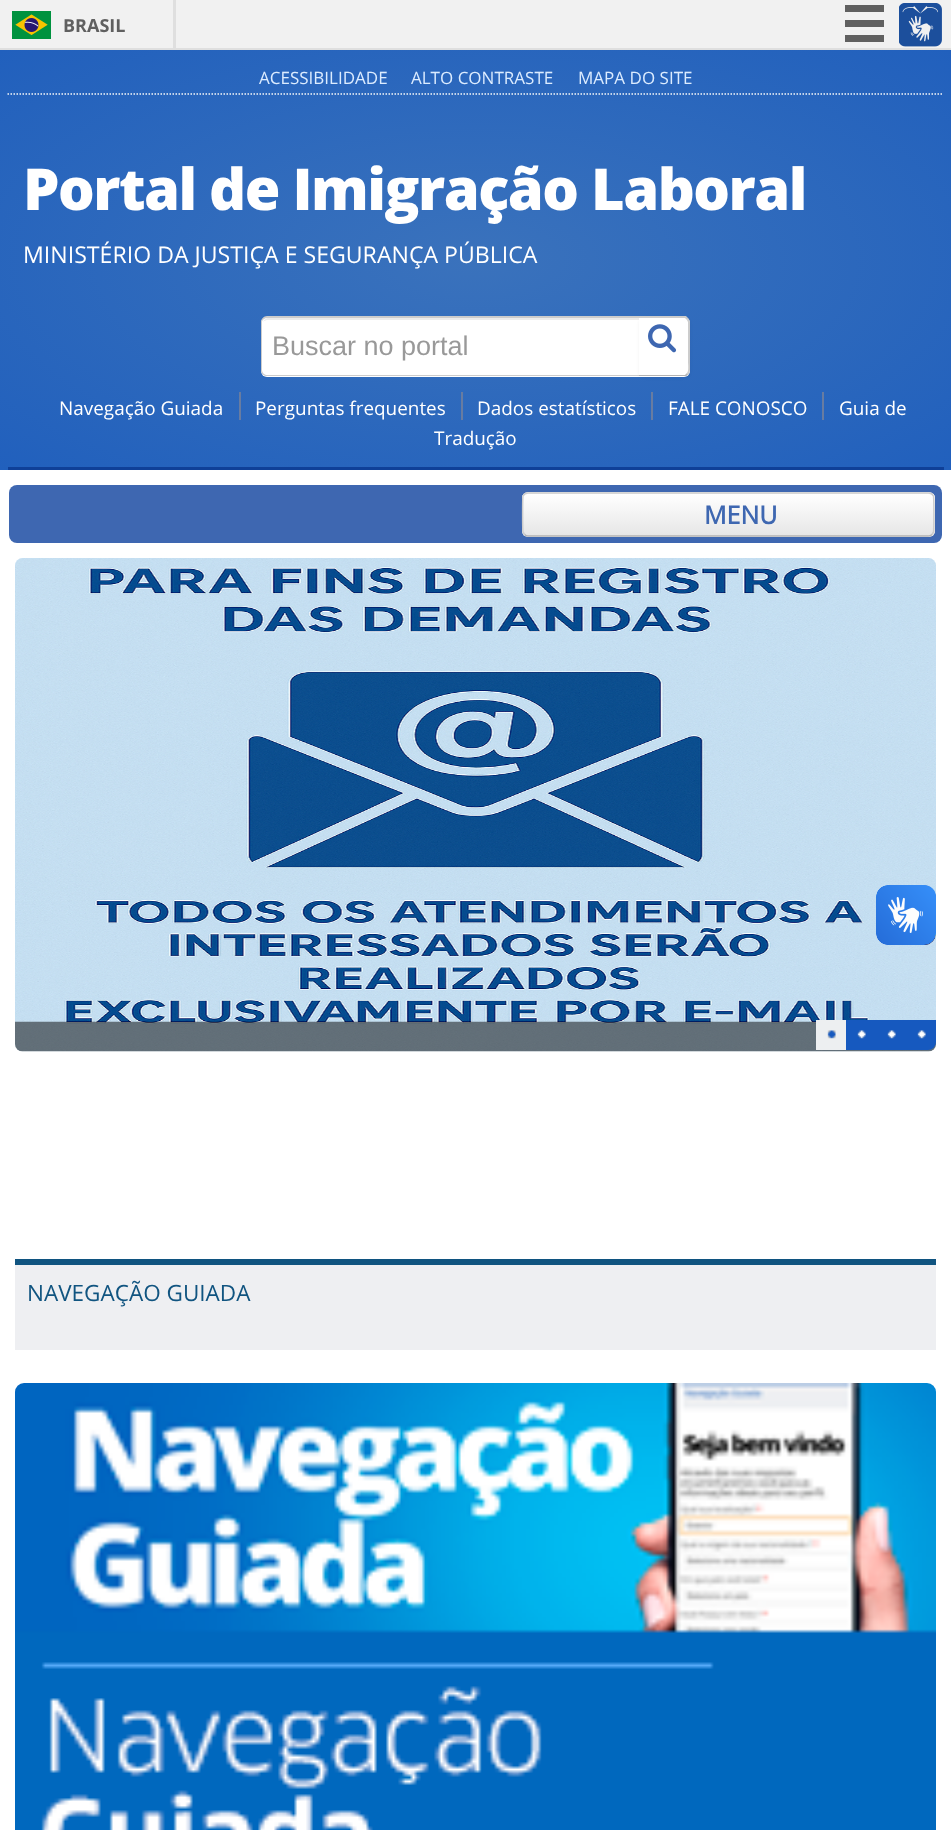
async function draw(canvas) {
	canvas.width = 951;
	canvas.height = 1830;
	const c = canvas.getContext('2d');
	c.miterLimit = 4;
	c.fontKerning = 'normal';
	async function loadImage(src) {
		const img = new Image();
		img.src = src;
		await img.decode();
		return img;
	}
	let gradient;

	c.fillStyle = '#fff';
	c.fillRect(0, 0, 951, 1830);
	for (const [x, y, w, h, color] of [
		[0, 0, 951, 48, '#f1f1f1'],
		[0, 48, 951, 2, '#dfdfdf'],
		[173, 0, 3, 48, '#dfdfdf'],
	]) {
		c.fillStyle = color;
		c.fillRect(x, y, w, h);
	}
	c.drawImage(await loadImage('img1.png'), 12, 11, 39, 28);
	c.font = 'bold 18px "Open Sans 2"';
	c.fillStyle = '#606060';
	c.fillText('BRASIL', 63, 32);
	for (const [x, y, w, h, color] of [
		[845, 5, 39, 7, '#606060'],
		[845, 20, 39, 7, '#606060'],
		[845, 35, 39, 7, '#606060'],
	]) {
		c.fillStyle = color;
		c.fillRect(x, y, w, h);
	}
	c.drawImage(await loadImage('img2.png'), 899, 3, 43, 44);
	gradient = c.createRadialGradient(476, 588.28, 0, 476, 588.28, 672);
	gradient.addColorStop(0.01, '#3a72bc');
	gradient.addColorStop(1, '#2160bd');
	c.fillStyle = gradient;
	c.beginPath();
	c.rect(0, 50, 951, 420);
	c.save();
	c.clip();
	c.scale(1, 297 / 672);
	c.fillRect(0, 0, 951, 4141);
	c.restore();
	c.beginPath();
	c.moveTo(7.5, 94);
	c.lineTo(943.5, 94);
	c.strokeStyle = '#f6f7f8';
	c.lineWidth = 1.5;
	c.setLineDash([1.5, 1.5]);
	c.stroke();
	c.font = '17px Open Sans';
	c.fillStyle = '#dcecff';
	for (const [text, x, y] of [
		['ACESSIBILIDADE', 259, 84],
		['ALTO CONTRASTE', 411, 84],
		['MAPA DO SITE', 578, 84],
	]) {
		c.fillText(text, x, y);
	}
	c.letterSpacing = '-1.5px';
	c.font = '800 57.75px Open Sans';
	c.fillStyle = '#fff';
	c.fillText('Portal de Imigração Laboral', 23, 210);
	c.letterSpacing = '0px';
	c.font = '23.1px Open Sans';
	c.fillText('MINISTÉRIO DA JUSTIÇA E SEGURANÇA PÚBLICA', 23, 263);
	c.beginPath();
	c.roundRect(261, 317, 380, 60, [6, 0, 0, 6]);
	c.fill();
	c.fillStyle = '#ececec';
	c.beginPath();
	c.moveTo(267, 320);
	c.lineTo(640, 320);
	c.lineTo(640, 375);
	c.lineTo(641, 375);
	c.lineTo(641, 318);
	c.lineTo(268, 318);
	c.bezierCurveTo(266, 318, 264, 320, 263, 322);
	c.bezierCurveTo(264, 321, 266, 320, 267, 320);
	c.closePath();
	c.fill();
	c.fillStyle = '#ccc';
	c.beginPath();
	c.moveTo(267, 316);
	c.lineTo(640, 316);
	c.lineTo(640, 376);
	c.lineTo(267, 376);
	c.bezierCurveTo(264, 376, 261, 374, 261, 370);
	c.lineTo(261, 322);
	c.bezierCurveTo(261, 319, 264, 316, 267, 316);
	c.closePath();
	c.moveTo(267, 318);
	c.lineTo(640, 318);
	c.lineTo(640, 375);
	c.lineTo(267, 375);
	c.bezierCurveTo(265, 375, 262, 373, 262, 370);
	c.lineTo(262, 322);
	c.bezierCurveTo(262, 320, 265, 318, 267, 318);
	c.closePath();
	c.fill('evenodd');
	c.font = '27px Liberation Sans';
	c.fillStyle = '#999';
	c.fillText('Buscar no portal', 272, 355);
	c.fillStyle = '#0000000d';
	c.filter = 'blur(1.5px)';
	c.beginPath();
	c.roundRect(639, 318, 51, 60, 6);
	c.fill();
	c.filter = 'none';
	c.fillStyle = '#fff';
	c.beginPath();
	c.roundRect(639, 317, 51, 60, [0, 6, 6, 0]);
	c.fill();
	c.fillStyle = '#ccc';
	c.beginPath();
	c.moveTo(639, 318);
	c.lineTo(685, 318);
	c.lineTo(687, 320);
	c.lineTo(688, 318);
	c.lineTo(686, 316);
	c.lineTo(639, 316);
	c.closePath();
	c.fill();
	c.beginPath();
	c.moveTo(687, 373);
	c.bezierCurveTo(689, 371, 688, 364, 688, 362);
	c.lineTo(688, 322);
	c.lineTo(687, 320);
	c.lineTo(688, 318);
	c.bezierCurveTo(689, 319, 690, 321, 690, 322);
	c.lineTo(690, 370);
	c.bezierCurveTo(690, 372, 689, 374, 688, 375);
	c.closePath();
	c.fill();
	c.fillStyle = '#b3b3b3';
	c.beginPath();
	c.moveTo(639, 375);
	c.lineTo(639, 376);
	c.lineTo(684, 376);
	c.bezierCurveTo(685, 376, 687, 376, 688, 375);
	c.lineTo(687, 373);
	c.lineTo(685, 375);
	c.closePath();
	c.fill();
	c.drawImage(await loadImage('img3.png'), 648, 324, 29, 29);
	c.fillStyle = '#0f4098';
	c.fillRect(8, 467, 936, 3);
	c.font = '18.9px Open Sans';
	c.fillStyle = '#fff';
	c.fillText('Navegação Guiada', 59, 415);
	c.fillText('Perguntas frequentes', 255, 415);
	c.fillStyle = '#687ca1';
	c.fillRect(239, 392, 2, 28);
	c.fillStyle = '#fff';
	c.fillText('Dados estatísticos', 477, 415);
	c.fillStyle = '#687ca1';
	c.fillRect(461, 392, 2, 28);
	c.fillRect(651, 392, 2, 28);
	c.fillStyle = '#fff';
	c.fillText('FALE CONOSCO', 668, 415);
	c.fillStyle = '#687ca1';
	c.fillRect(822, 392, 2, 28);
	c.fillStyle = '#fff';
	c.fillText('Guia de', 839, 415);
	c.fillText('Tradução', 434, 445);
	c.fillStyle = '#3e67b1';
	c.beginPath();
	c.roundRect(9, 485, 933, 58, 8);
	c.fill();
	c.fillStyle = '#f5f5f5';
	c.beginPath();
	c.roundRect(522, 492, 413, 45, 6);
	c.fill();
	c.save();
	c.beginPath();
	c.roundRect(522, 492, 413, 45, 6);
	c.clip();
	gradient = c.createLinearGradient(728, 494, 728, 536);
	gradient.addColorStop(0, '#fff');
	gradient.addColorStop(1, '#e6e6e6');
	c.fillStyle = gradient;
	c.fillRect(522, 494, 413, 42);
	c.restore();
	c.beginPath();
	c.moveTo(932, 534.5);
	c.bezierCurveTo(931, 535.5, 930, 536, 928.5, 536);
	c.lineTo(528, 536);
	c.bezierCurveTo(526.5, 536, 525.5, 535.5, 524.5, 534.5);
	c.strokeStyle = '#b3b3b3';
	c.setLineDash([]);
	c.stroke();
	c.beginPath();
	c.moveTo(524.5, 534.5);
	c.lineTo(523, 532);
	c.bezierCurveTo(522.5, 529, 522.5, 498, 523, 496);
	c.bezierCurveTo(524, 494, 526, 493, 528, 493);
	c.lineTo(928.5, 493);
	c.bezierCurveTo(930.5, 493, 932.5, 494, 933.5, 496);
	c.bezierCurveTo(934, 498, 934, 529, 933.5, 532);
	c.lineTo(932, 534.5);
	c.strokeStyle = '#ccc';
	c.stroke();
	c.font = 'bold 25px Open Sans';
	c.fillStyle = '#3e67b1';
	c.fillText('MENU', 704, 524);
	c.drawImage(await loadImage('img4.png'), 15, 558, 921, 494);
	c.drawImage(await loadImage('img5.png'), 15, 1021, 921, 31);
	c.fillStyle = '#edeff1';
	c.fillRect(816, 1020, 30, 30);
	c.drawImage(await loadImage('img6.png'), 827, 1030, 9, 9);
	c.fillStyle = '#1659bf';
	c.fillRect(846, 1020, 60, 30);
	c.drawImage(await loadImage('img7.png'), 857, 1030, 9, 9);
	c.beginPath();
	c.roundRect(906, 1020, 30, 30, [0, 0, 8, 0]);
	c.fill();
	c.drawImage(await loadImage('img7.png'), 917, 1030, 9, 9);
	c.drawImage(await loadImage('img7.png'), 887, 1030, 9, 9);
	c.fillStyle = '#eeeff2';
	c.fillRect(15, 1265, 921, 85);
	c.fillStyle = '#105480';
	c.fillRect(15, 1259, 921, 6);
	c.font = '22.5px Open Sans';
	c.fillText('NAVEGAÇÃO GUIADA', 27, 1301);
	c.drawImage(await loadImage('img8.png'), 15, 1383, 921, 447);
	c.drawImage(await loadImage('img9.png'), 876, 885, 60, 60);
	c.drawImage(await loadImage('img10.png'), 876, 885, 60, 60);
}

draw(document.querySelector('canvas'));
